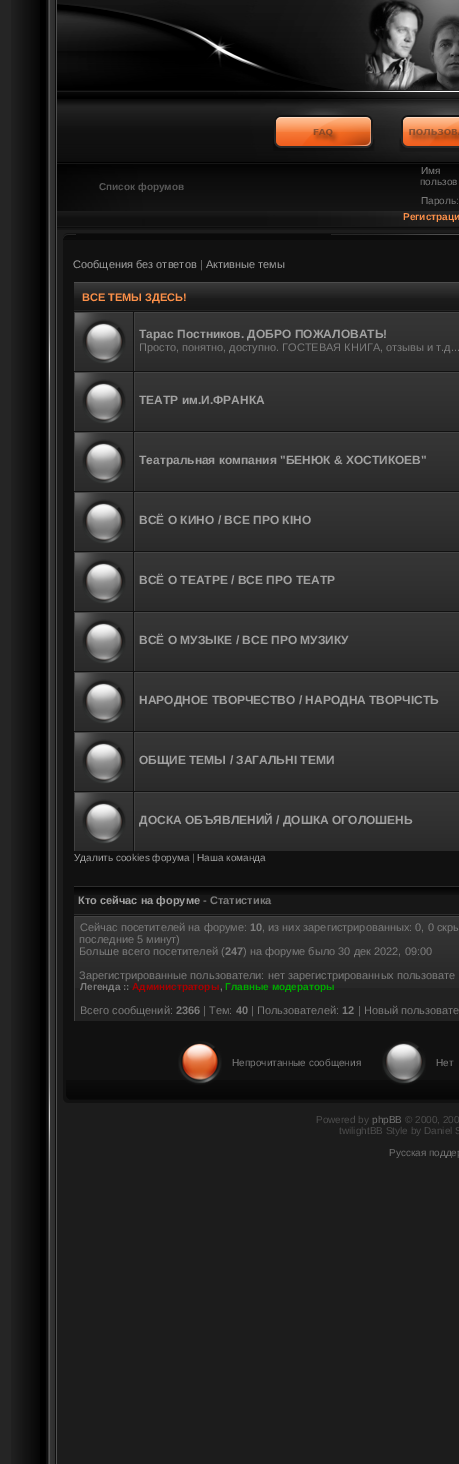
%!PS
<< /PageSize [459 1464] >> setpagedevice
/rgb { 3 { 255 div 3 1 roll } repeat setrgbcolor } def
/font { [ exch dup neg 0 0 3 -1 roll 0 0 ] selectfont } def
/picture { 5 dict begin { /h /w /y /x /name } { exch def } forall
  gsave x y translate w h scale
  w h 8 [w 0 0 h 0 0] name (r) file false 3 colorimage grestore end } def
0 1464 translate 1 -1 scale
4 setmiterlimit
28 28 28 rgb
0 0 459 1464 rectfill
37 37 37 rgb
0 0 11 1464 rectfill
(img/1.rgb) 11 0 46 1464 picture
(img/2.rgb) 57 226 402 4 picture
(img/3.rgb) 57 0 402 99 picture
(img/4.rgb) 365 0 94 90 picture
(img/5.rgb) 57 99 402 127 picture
(img/6.rgb) 273 108 102 43 picture
(img/7.rgb) 399 108 60 44 picture
17 17 17 rgb
63 233 396 870 rectfill
10 10 10 rgb
63 234 396 6 rectfill
(img/8.rgb) 331 234 128 1 picture
(img/9.rgb) 63 233 13 6 picture
(img/10.rgb) 69 1080 390 20 picture
(img/11.rgb) 63 1080 6 23 picture
(img/12.rgb) 74 282 385 29 picture
(img/13.rgb) 75 313 58 58 picture
68 68 68 rgb
74 312 59 1 rectfill
64 64 64 rgb
74 312 1 59 rectfill
(img/14.rgb) 82 319 44 45 picture
(img/15.rgb) 135 313 324 58 picture
68 68 68 rgb
134 312 325 1 rectfill
64 64 64 rgb
134 312 1 59 rectfill
(img/13.rgb) 75 373 58 58 picture
68 68 68 rgb
74 372 59 1 rectfill
64 64 64 rgb
74 372 1 59 rectfill
(img/14.rgb) 82 379 44 45 picture
(img/15.rgb) 135 373 324 58 picture
68 68 68 rgb
134 372 325 1 rectfill
64 64 64 rgb
134 372 1 59 rectfill
(img/13.rgb) 75 433 58 58 picture
68 68 68 rgb
74 432 59 1 rectfill
64 64 64 rgb
74 432 1 59 rectfill
(img/14.rgb) 82 439 44 45 picture
(img/15.rgb) 135 433 324 58 picture
68 68 68 rgb
134 432 325 1 rectfill
64 64 64 rgb
134 432 1 59 rectfill
(img/13.rgb) 75 493 58 58 picture
68 68 68 rgb
74 492 59 1 rectfill
64 64 64 rgb
74 492 1 59 rectfill
(img/14.rgb) 82 499 44 45 picture
(img/15.rgb) 135 493 324 58 picture
68 68 68 rgb
134 492 325 1 rectfill
64 64 64 rgb
134 492 1 59 rectfill
(img/13.rgb) 75 553 58 58 picture
68 68 68 rgb
74 552 59 1 rectfill
64 64 64 rgb
74 552 1 59 rectfill
(img/14.rgb) 82 559 44 45 picture
(img/15.rgb) 135 553 324 58 picture
68 68 68 rgb
134 552 325 1 rectfill
64 64 64 rgb
134 552 1 59 rectfill
(img/13.rgb) 75 613 58 58 picture
68 68 68 rgb
74 612 59 1 rectfill
64 64 64 rgb
74 612 1 59 rectfill
(img/14.rgb) 82 619 44 45 picture
(img/15.rgb) 135 613 324 58 picture
68 68 68 rgb
134 612 325 1 rectfill
64 64 64 rgb
134 612 1 59 rectfill
(img/13.rgb) 75 673 58 58 picture
68 68 68 rgb
74 672 59 1 rectfill
64 64 64 rgb
74 672 1 59 rectfill
(img/14.rgb) 82 679 44 45 picture
(img/15.rgb) 135 673 324 58 picture
68 68 68 rgb
134 672 325 1 rectfill
64 64 64 rgb
134 672 1 59 rectfill
(img/13.rgb) 75 733 58 58 picture
68 68 68 rgb
74 732 59 1 rectfill
64 64 64 rgb
74 732 1 59 rectfill
(img/14.rgb) 82 739 44 45 picture
(img/15.rgb) 135 733 324 58 picture
68 68 68 rgb
134 732 325 1 rectfill
64 64 64 rgb
134 732 1 59 rectfill
(img/13.rgb) 75 793 58 58 picture
68 68 68 rgb
74 792 59 1 rectfill
64 64 64 rgb
74 792 1 59 rectfill
(img/14.rgb) 82 799 44 45 picture
(img/15.rgb) 135 793 324 58 picture
[
  [134 792 325 1 68 68 68]
  [134 792 1 59 64 64 64]
  [74 895 385 19 23 23 23]
] { aload pop rgb rectfill } forall
(img/16.rgb) 74 886 385 9 picture
45 45 45 rgb
74 914 385 1 rectfill
34 34 34 rgb
75 988 384 33 rectfill
(img/17.rgb) 75 917 384 71 picture
68 68 68 rgb
74 916 385 1 rectfill
64 64 64 rgb
74 916 1 105 rectfill
(img/18.rgb) 178 1041 44 44 picture
(img/19.rgb) 382 1041 44 44 picture
/LiberationSans-Bold 10 font
88 88 88 rgb
99 190 moveto (Список форумов) show
/LiberationSans-Regular 10 font
124 124 124 rgb
[
  [(Имя) 421 174]
  [(пользов) 420 185]
  [(Пароль:) 421 204]
] { aload pop moveto show } forall
/LiberationSans-Bold 10 font
252 144 73 rgb
403 220 moveto (Регистраци) show
/LiberationSans-Regular 11 font
161 161 161 rgb
73 268 moveto (Сообщения без ответов) show
124 124 124 rgb
200 268 moveto (|) show
161 161 161 rgb
206 268 moveto (Активные темы) show
/LiberationSans-Bold 11 font
252 144 73 rgb
82 301 moveto (ВСЕ ТЕМЫ ЗДЕСЬ!) show
/LiberationSans-Bold 12 font
161 161 161 rgb
139 338 moveto (Тарас Постников. ДОБРО ПОЖАЛОВАТЬ!) show
/LiberationSans-Regular 11 font
124 124 124 rgb
139 351 moveto (Просто, понятно, доступно. ГОСТЕВАЯ КНИГА, отзывы и т.д...) show
/LiberationSans-Bold 12 font
161 161 161 rgb
[
  [(ТЕАТР им.И.ФРАНКА) 139 404]
  [(Театральная компания "БЕНЮК & ХОСТИКОЕВ") 139 464]
  [(ВСЁ О КИНО / ВСЕ ПРО КІНО) 139 524]
  [(ВСЁ О ТЕАТРЕ / ВСЕ ПРО ТЕАТР) 139 584]
  [(ВСЁ О МУЗЫКЕ / ВСЕ ПРО МУЗИКУ) 139 644]
  [(НАРОДНОЕ ТВОРЧЕСТВО / НАРОДНА ТВОРЧІСТЬ) 139 704]
  [(ОБЩИЕ ТЕМЫ / ЗАГАЛЬНІ ТЕМИ) 139 764]
  [(ДОСКА ОБЪЯВЛЕНИЙ / ДОШКА ОГОЛОШЕНЬ) 139 824]
] { aload pop moveto show } forall
/LiberationSans-Regular 10 font
74 861 moveto (Удалить cookies форума) show
124 124 124 rgb
192 861 moveto (|) show
161 161 161 rgb
197 861 moveto (Наша команда) show
/LiberationSans-Bold 11 font
78 904 moveto (Кто сейчас на форуме) show
124 124 124 rgb
203 904 moveto (- Статистика) show
/LiberationSans-Regular 11 font
80 931 moveto (Сейчас посетителей на форуме:) show
/LiberationSans-Bold 11 font
250 931 moveto (10) show
/LiberationSans-Regular 11 font
[
  [(, из них зарегистрированных: 0, 0 скры) 262 931]
  [(последние 5 минут\)) 79 943]
  [(Больше всего посетителей \() 79 955]
] { aload pop moveto show } forall
/LiberationSans-Bold 11 font
225 955 moveto (247) show
/LiberationSans-Regular 11 font
243 955 moveto (\) на форуме было 30 дек 2022, 09:00) show
79 979 moveto (Зарегистрированные пользователи: нет зарегистрированных пользовате) show
/LiberationSans-Bold 10 font
80 990 moveto (Легенда ::) show
170 0 0 rgb
132 990 moveto (Администраторы) show
124 124 124 rgb
220 990 moveto (,) show
0 170 0 rgb
225 990 moveto (Главные модераторы) show
/LiberationSans-Regular 11 font
124 124 124 rgb
80 1014 moveto (Всего сообщений:) show
/LiberationSans-Bold 11 font
176 1014 moveto (2366) show
/LiberationSans-Regular 11 font
203 1014 moveto (| Тем:) show
/LiberationSans-Bold 11 font
236 1014 moveto (40) show
/LiberationSans-Regular 11 font
251 1014 moveto (| Пользователей:) show
/LiberationSans-Bold 11 font
342 1014 moveto (12) show
/LiberationSans-Regular 11 font
358 1014 moveto (| Новый пользовате) show
/LiberationSans-Regular 10 font
232 1066 moveto (Непрочитанные сообщения) show
436 1066 moveto (Нет) show
77 77 77 rgb
316 1123 moveto (Powered by) show
113 113 113 rgb
372 1123 moveto (phpBB) show
77 77 77 rgb
405 1123 moveto (© 2000, 200) show
339 1134 moveto (twilightBB Style by Daniel S) show
113 113 113 rgb
389 1156 moveto (Русская поддер) show
showpage
